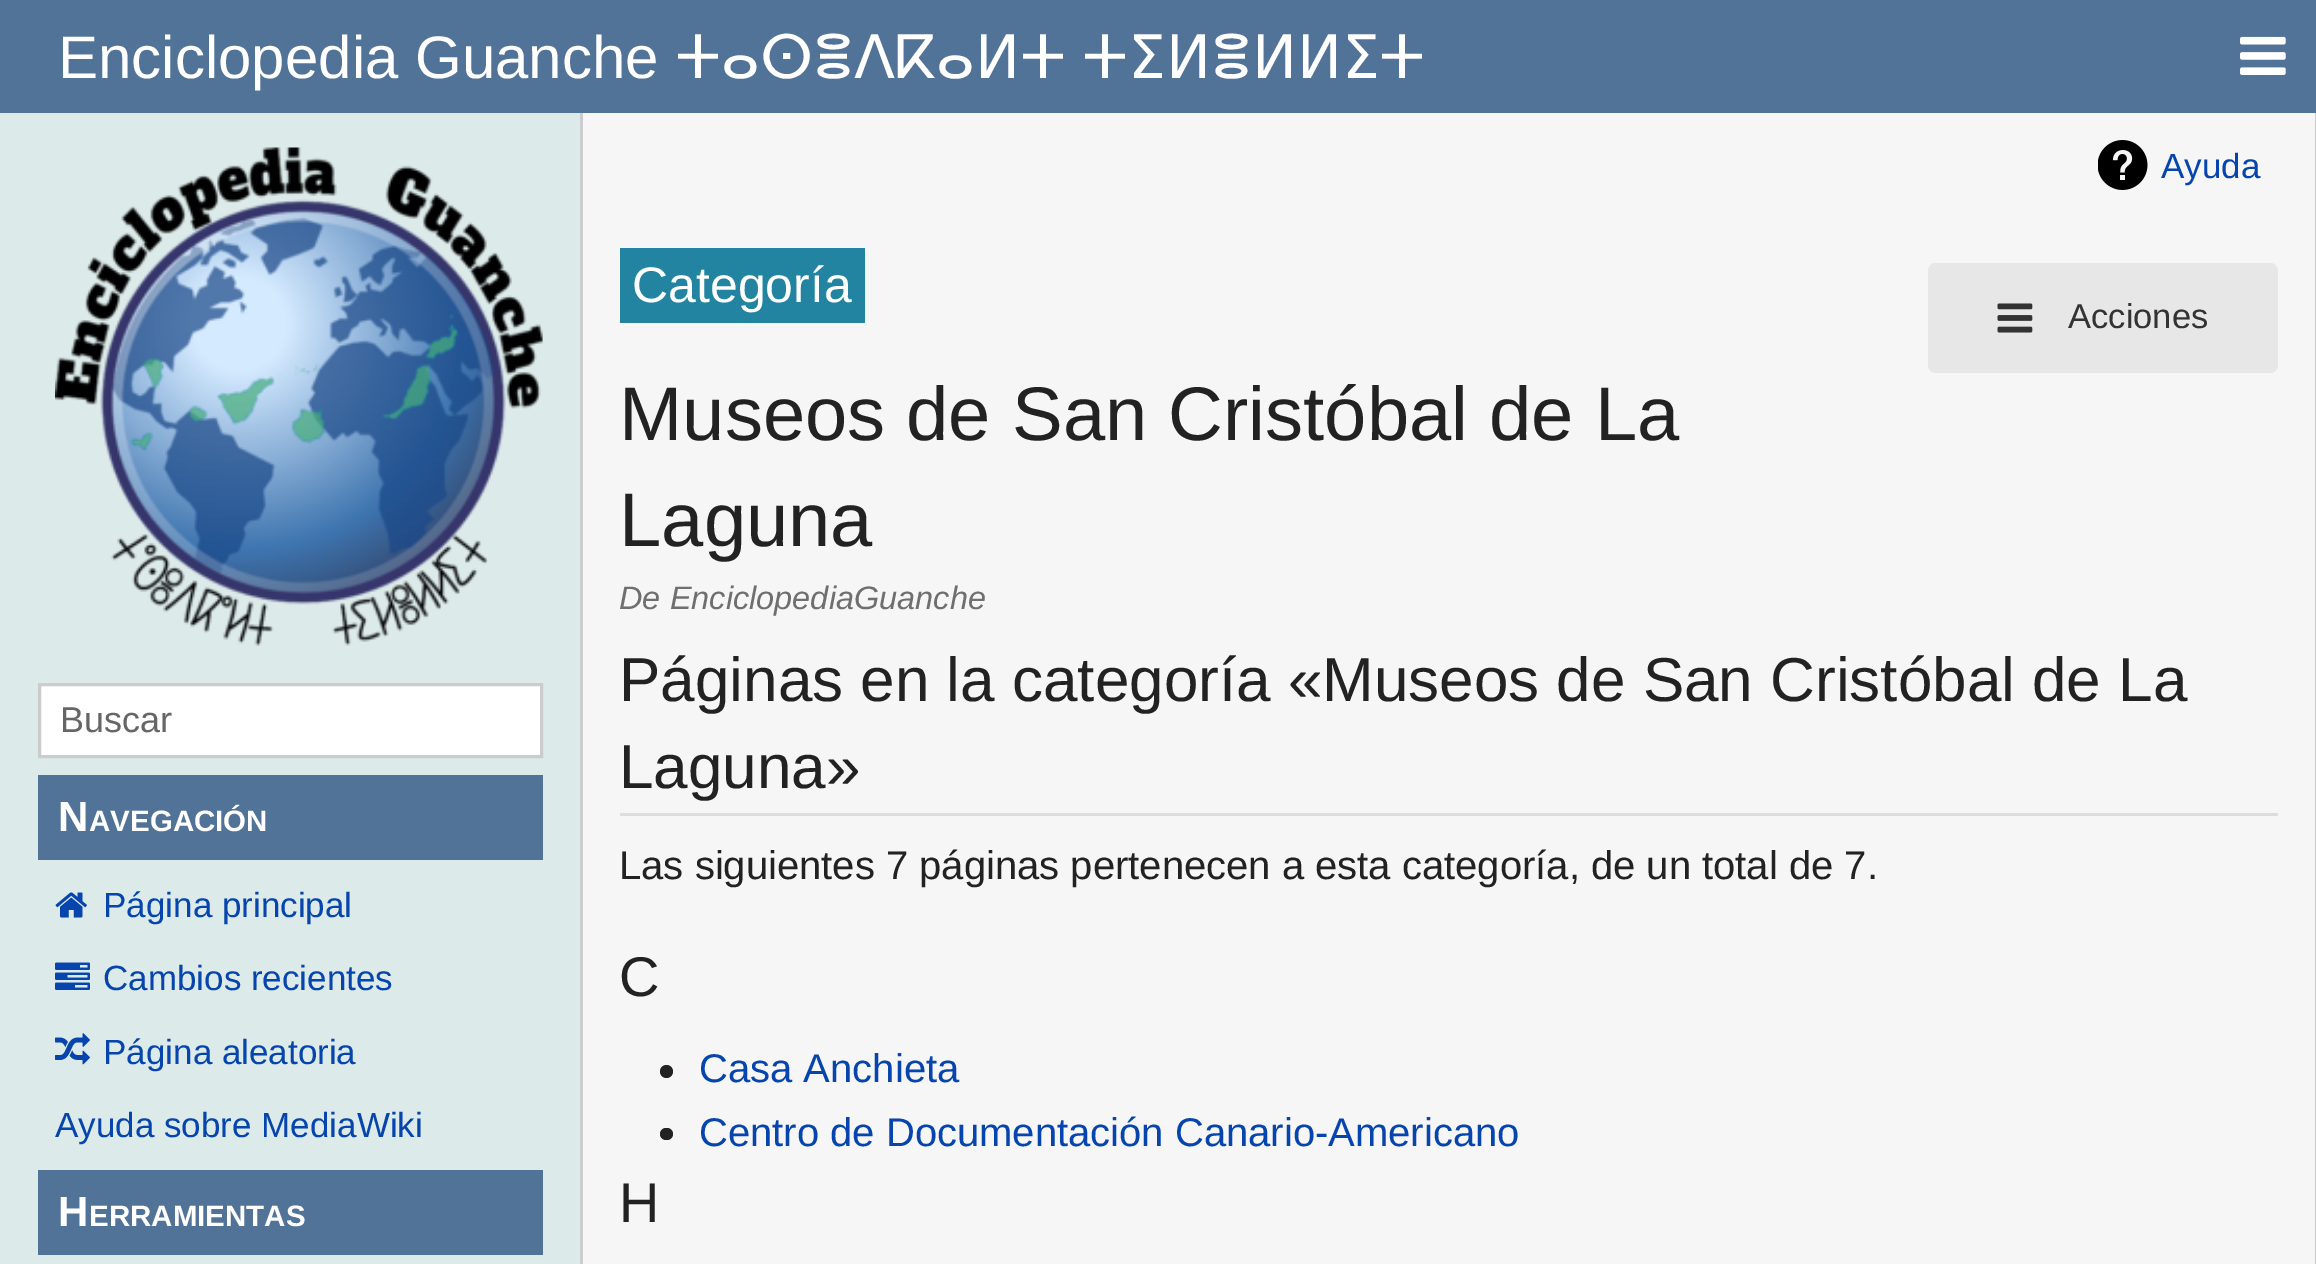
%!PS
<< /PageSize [2316 1264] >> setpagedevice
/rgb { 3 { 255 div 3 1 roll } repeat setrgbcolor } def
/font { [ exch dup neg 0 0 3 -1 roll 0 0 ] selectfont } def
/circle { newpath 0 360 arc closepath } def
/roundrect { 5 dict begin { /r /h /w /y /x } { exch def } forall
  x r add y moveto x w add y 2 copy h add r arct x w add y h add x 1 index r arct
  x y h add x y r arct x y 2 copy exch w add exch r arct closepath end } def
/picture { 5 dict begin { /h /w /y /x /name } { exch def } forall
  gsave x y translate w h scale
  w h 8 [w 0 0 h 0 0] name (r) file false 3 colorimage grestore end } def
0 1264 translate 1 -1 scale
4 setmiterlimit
220 234 234 rgb
0 0 2316 1264 rectfill
81 115 152 rgb
0 0 2316 113 rectfill
(img/1.rgb) 2240 36 46 39 picture
(img/2.rgb) 55 147 488 499 picture
255 255 255 rgb
39.5 684.5 moveto 541.5 684.5 lineto 541.5 756.5 lineto 39.5 756.5 lineto closepath gsave fill grestore
204 204 204 rgb
3 setlinewidth
stroke
81 115 152 rgb
38 775 505 85 rectfill
(img/3.rgb) 55 892 32 26 picture
(img/4.rgb) 55 962 35 28 picture
(img/5.rgb) 55 1033 35 32 picture
[
  [38 1170 505 85 81 115 152]
  [583 113 1732 1151 246 246 246]
  [2315 113 1 1151 204 204 204]
  [580 113 3 1151 204 204 204]
] { aload pop rgb rectfill } forall
(img/6.rgb) 2098 140 50 50 picture
34 132 161 rgb
620 248 245 75 rectfill
231 231 231 rgb
1928 263 350 110 8 roundrect fill
(img/7.rgb) 1997 303 36 30 picture
221 221 221 rgb
620 813 1658 3 rectfill
34 34 34 rgb
666.5 1071.5 6.5 circle fill
660 1128 13 12 6 roundrect fill
/LiberationSans-Regular 60 font
255 255 255 rgb
58 78 moveto (Enciclopedia Guanche) show
/DejaVuSans-Regular 60 font
675 78 moveto (ⵜⴰⵙⴻⴷⴽⴰⵍⵜ) show
1082 78 moveto (ⵜⵉⵍⴻⵍⵍⵉⵜ) show
/LiberationSans-Regular 36 font
102 102 102 rgb
60 732 moveto (Buscar) show
/LiberationSans-Bold 42 font
255 255 255 rgb
58 831 moveto (N) show
/LiberationSans-Bold 29.5 font
89 831 moveto (AVEGACIÓN) show
/LiberationSans-Regular 35 font
6 69 173 rgb
[
  [(Página principal) 103 917]
  [(Cambios recientes) 103 990]
  [(Página aleatoria) 103 1064]
  [(Ayuda sobre MediaWiki) 55 1137]
] { aload pop moveto show } forall
/LiberationSans-Bold 42 font
255 255 255 rgb
58 1226 moveto (H) show
/LiberationSans-Bold 29.5 font
89 1226 moveto (ERRAMIENTAS) show
/LiberationSans-Regular 35 font
6 69 173 rgb
2161 178 moveto (Ayuda) show
/LiberationSans-Regular 50 font
255 255 255 rgb
632 302 moveto (Categoría) show
/LiberationSans-Regular 34.5 font
51 51 51 rgb
2068 328 moveto (Acciones) show
/LiberationSans-Regular 76 font
34 34 34 rgb
619 440 moveto (Museos de San Cristóbal de La) show
619 546 moveto (Laguna) show
/LiberationSans-Italic 32.5 font
111 111 111 rgb
619 609 moveto (De EnciclopediaGuanche) show
/LiberationSans-Regular 62 font
34 34 34 rgb
619 701 moveto (Páginas en la categoría «Museos de San Cristóbal de La) show
619 788 moveto (Laguna») show
/LiberationSans-Regular 40 font
619 879 moveto (Las siguientes 7 páginas pertenecen a esta categoría, de un total de 7.) show
/LiberationSans-Regular 56 font
619 996 moveto (C) show
/LiberationSans-Regular 40 font
6 69 173 rgb
699 1082 moveto (Casa Anchieta) show
699 1146 moveto (Centro de Documentación Canario-Americano) show
/LiberationSans-Regular 56 font
34 34 34 rgb
619 1222 moveto (H) show
showpage
